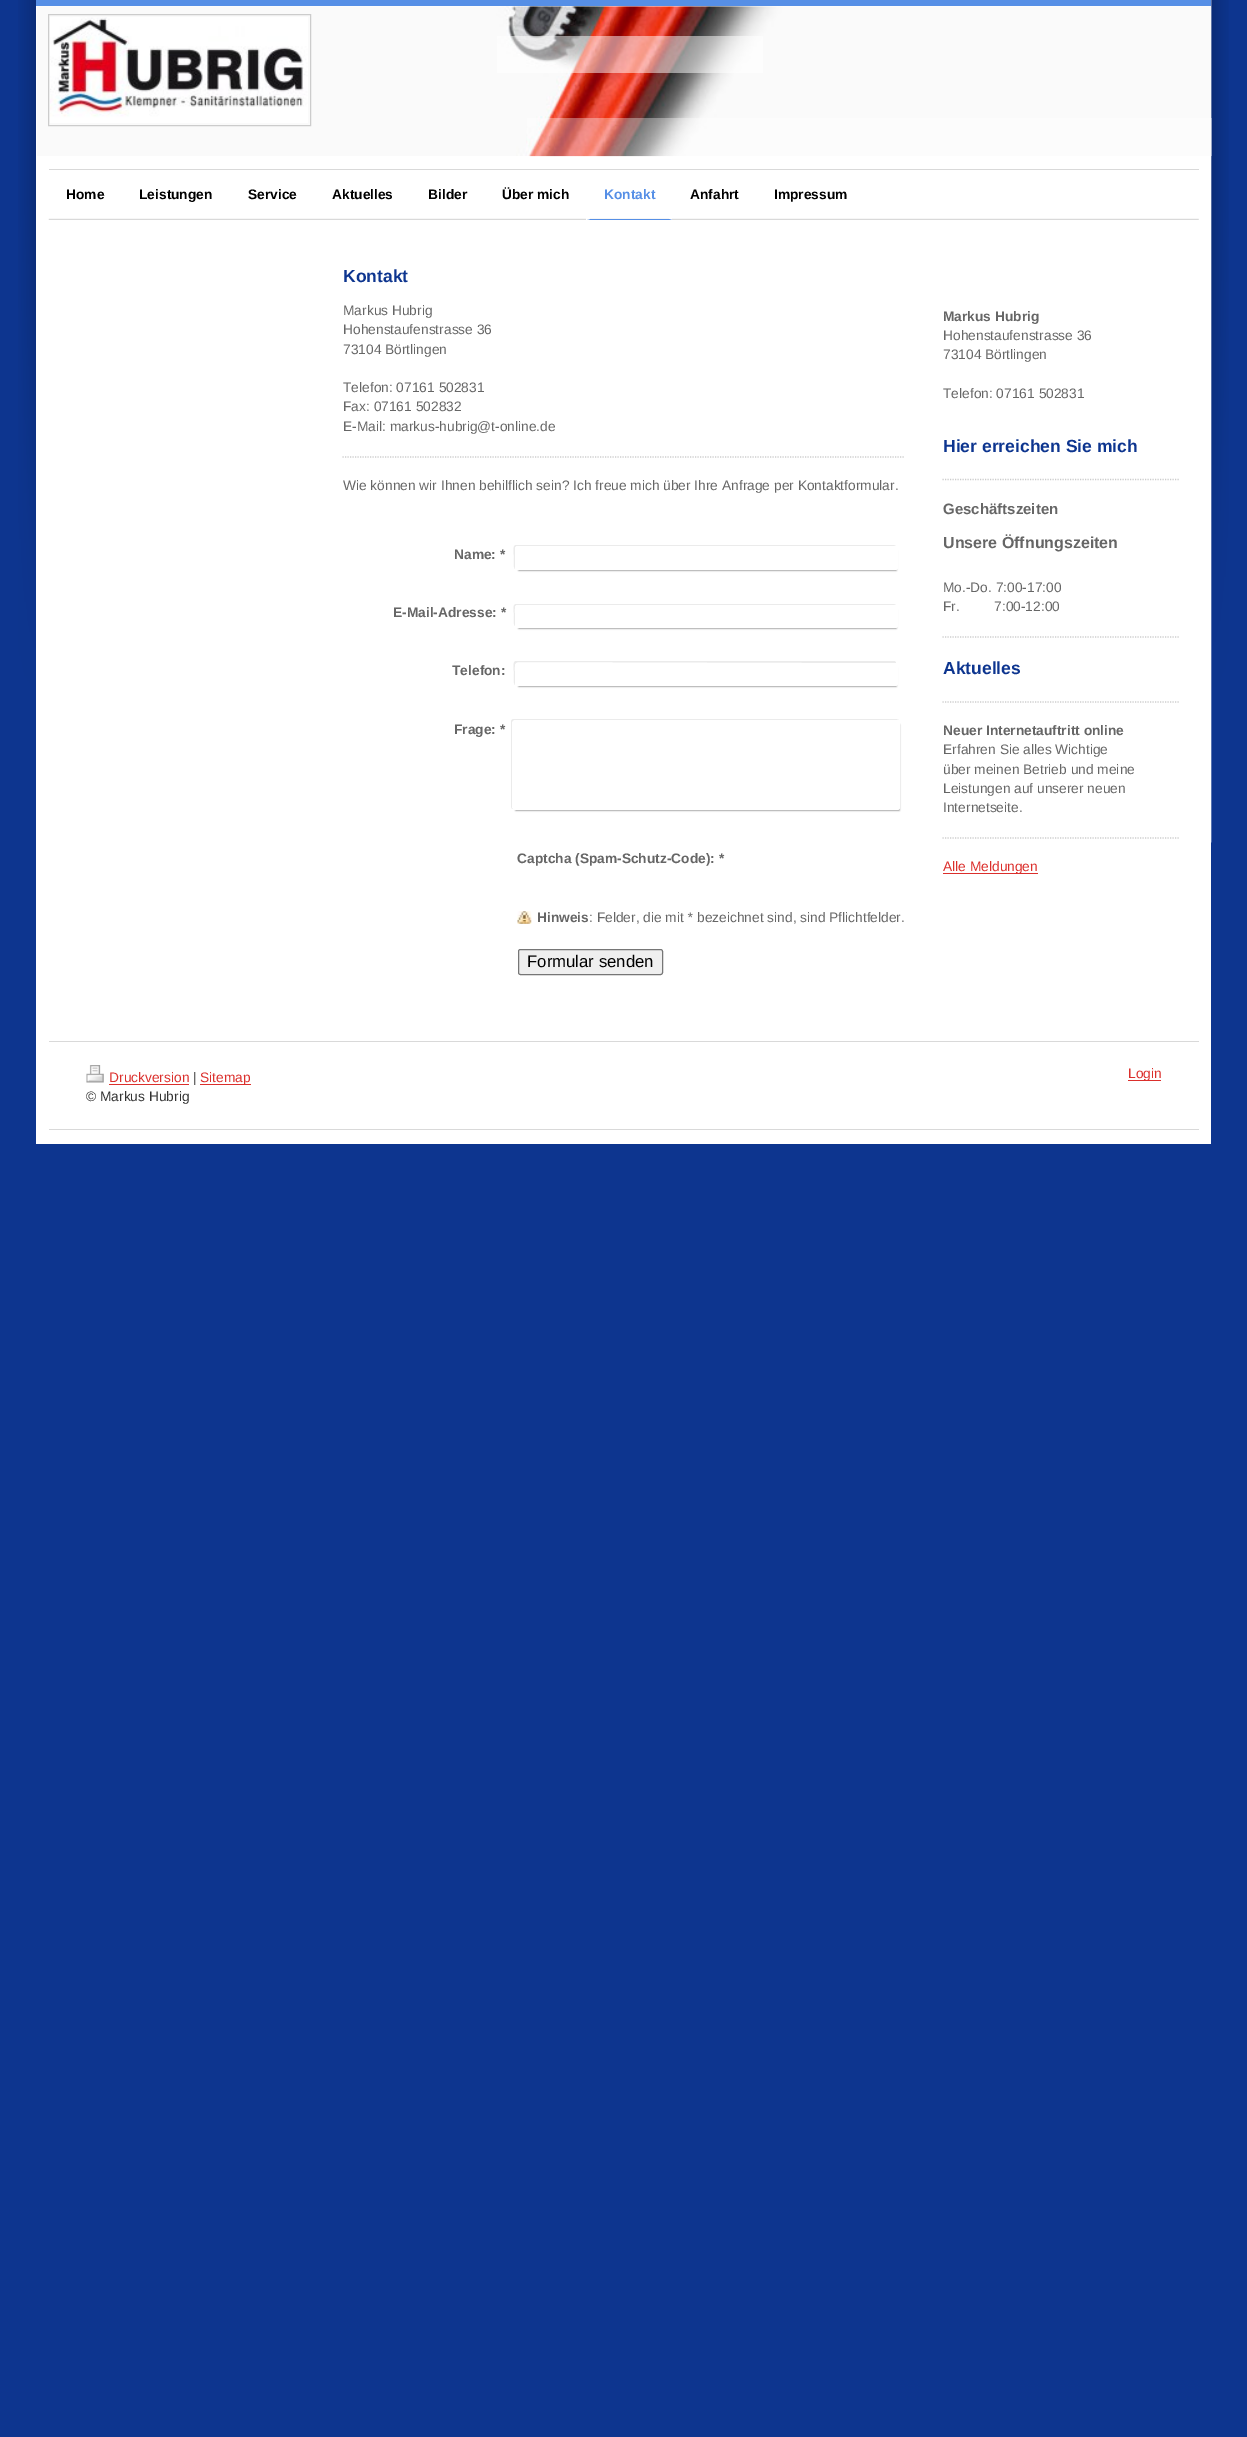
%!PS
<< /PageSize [1247 2437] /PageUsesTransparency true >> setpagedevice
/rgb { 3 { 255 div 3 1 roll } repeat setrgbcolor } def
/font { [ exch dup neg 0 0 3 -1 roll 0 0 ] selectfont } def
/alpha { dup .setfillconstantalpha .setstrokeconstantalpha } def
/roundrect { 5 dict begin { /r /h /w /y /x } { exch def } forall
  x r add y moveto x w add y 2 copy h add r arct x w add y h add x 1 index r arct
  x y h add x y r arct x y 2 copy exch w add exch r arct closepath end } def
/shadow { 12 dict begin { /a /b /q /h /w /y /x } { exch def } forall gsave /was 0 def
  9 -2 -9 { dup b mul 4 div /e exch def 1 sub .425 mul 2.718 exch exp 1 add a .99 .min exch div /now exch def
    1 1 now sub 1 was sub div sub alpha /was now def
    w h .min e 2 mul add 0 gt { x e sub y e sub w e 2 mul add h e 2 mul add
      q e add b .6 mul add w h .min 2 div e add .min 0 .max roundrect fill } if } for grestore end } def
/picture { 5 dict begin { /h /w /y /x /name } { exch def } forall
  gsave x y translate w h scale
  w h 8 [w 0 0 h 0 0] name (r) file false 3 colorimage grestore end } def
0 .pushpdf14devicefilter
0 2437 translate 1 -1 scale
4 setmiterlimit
13 53 143 rgb
0 0 1247 2437 rectfill
(img/1.rgb) 18 0 1211 843 picture
255 255 255 rgb
36 6 1175 1138 rectfill
86 143 230 rgb
36 0 1175 6 rectfill
(img/2.rgb) 37 6 1175 151 picture
204 204 204 rgb
48.5 14.5 262 111 rectstroke
(img/3.rgb) 50 17 258 106 picture
0.5 alpha
[
  [497 36 266 37 255 255 255]
] { aload pop rgb rectfill } forall
0.35 alpha
[
  [527 118 685 38 255 255 255]
] { aload pop rgb rectfill } forall
1 alpha
[
  [49 169 1150 1 217 217 217]
] { aload pop rgb rectfill } forall
(img/4.rgb) 48 218 1151 2 picture
255 255 255 rgb
672 170 moveto 672 220 lineto 669 219 lineto 669 170 lineto closepath fill
86 143 230 rgb
672 220 moveto 586 220 lineto 590 219 lineto 669 219 lineto closepath fill
255 255 255 rgb
586 220 moveto 586 170 lineto 590 170 lineto 590 219 lineto closepath fill
204 204 204 rgb
1.2 setlinewidth
[1.25 1.25] 0 setdash
342.5 457 moveto 905 457 lineto stroke
235 235 235 rgb
516 545 moveto 512 545 514 555 514 557 curveto 514 559 513 567 515 569 curveto 515 555 lineto 515 553 514 546 518 546 curveto 896 546 lineto 895 546 894 545 894 545 curveto closepath fill
0 0 0 rgb
519 551 377 19 0 1 0.8 shadow
255 255 255 rgb
515 546 383 24 2.5 roundrect fill
235 235 235 rgb
516 604 moveto 512 604 514 613 514 615 curveto 514 617 513 624 515 626 curveto 515 616 lineto 515 614 513 605 518 605 curveto 896 605 lineto 894 604 lineto closepath fill
0 0 0 rgb
519 610 377 18 0 1 0.8 shadow
255 255 255 rgb
515 605 383 23 2.5 roundrect fill
235 235 235 rgb
516 661 moveto 512 661 514 671 514 673 curveto 514 675 513 683 515 685 curveto 515 674 lineto 515 672 513 663 518 662 curveto 896 663 lineto 896 662 895 661 894 661 curveto closepath fill
0 0 0 rgb
519 668 377 18 0 1 0.8 shadow
255 255 255 rgb
515 663 383 23 2.5 roundrect fill
235 235 235 rgb
514 719 moveto 512 719 511 720 511 722 curveto 511 806 lineto 511 808 512 809 513 809 curveto 512 808 lineto 512 722 lineto 512 721 514 720 515 720 curveto 899 720 lineto 898 720 897 719 896 719 curveto closepath fill
0 0 0 rgb
516 725 383 85 0 1 0.8 shadow
255 255 255 rgb
513 720 387 90 2.5 roundrect fill
(img/5.rgb) 517 911 15 13 picture
239 239 239 rgb
518.5 949.5 144 25 2 roundrect gsave fill grestore
118 118 118 rgb
1 setlinewidth
[] 0 setdash
stroke
204 204 204 rgb
1.2 setlinewidth
[1.25 1.25] 0 setdash
942.5 479.5 moveto 1180 479.5 lineto stroke
942.5 637 moveto 1180 637 lineto stroke
942.5 702 moveto 1180 702 lineto stroke
942.5 838 moveto 1180 838 lineto stroke
[
  [943 873 95 1 219 47 44]
  [49 1041 1150 1 217 217 217]
  [49 1129 1150 1 217 217 217]
] { aload pop rgb rectfill } forall
(img/6.rgb) 86 1065 18 18 picture
[
  [109 1084 80 1 219 47 44]
  [200 1084 51 1 219 47 44]
  [1128 1080 33 1 219 47 44]
] { aload pop rgb rectfill } forall
/LiberationSans-Bold 13.75 font
0 0 0 rgb
[
  [(Home) 66 199]
  [(Leistungen) 139 199]
  [(Service) 248 199]
  [(Aktuelles) 332 199]
  [(Bilder) 428 199]
  [(Über mich) 502 199]
] { aload pop moveto show } forall
86 143 230 rgb
604 199 moveto (Kontakt) show
0 0 0 rgb
690 199 moveto (Anfahrt) show
774 199 moveto (Impressum) show
/LiberationSans-Bold 17.5 font
13 53 143 rgb
343 282 moveto (Kontakt) show
/LiberationSans-Regular 13.75 font
102 102 102 rgb
[
  [(Markus Hubrig) 343 315]
  [(Hohenstaufenstrasse 36) 343 334]
  [(73104 Börtlingen) 343 354]
  [(Telefon: 07161 502831) 343 392]
  [(Fax: 07161 502832) 343 411]
  [(E-Mail: markus-hubrig@t-online.de) 343 431]
  [(Wie können wir Ihnen behilflich sein? Ich freue mich über Ihre Anfrage per Kontaktformular.) 343 490]
] { aload pop moveto show } forall
/LiberationSans-Bold 13.75 font
[
  [(Name: *) 454 559]
  [(E-Mail-Adresse: *) 393 617]
  [(Telefon:) 452 675]
  [(Frage: *) 454 734]
  [(Captcha \(Spam-Schutz-Code\): *) 517 863]
  [(Hinweis) 537 922]
] { aload pop moveto show } forall
/LiberationSans-Regular 13.75 font
589 922 moveto (: Felder, die mit) show
/LiberationSans-Italic 13.75 font
687 922 moveto (*) show
/LiberationSans-Regular 13.75 font
697 922 moveto (bezeichnet sind, sind Pflichtfelder.) show
/LiberationSans-Regular 16.75 font
0 0 0 rgb
527 967 moveto (Formular senden) show
/LiberationSans-Bold 13.75 font
102 102 102 rgb
943 321 moveto (Markus Hubrig) show
/LiberationSans-Regular 13.75 font
[
  [(Hohenstaufenstrasse 36) 943 340]
  [(73104 Börtlingen) 943 359]
  [(Telefon: 07161 502831) 943 398]
] { aload pop moveto show } forall
/LiberationSans-Bold 17.5 font
13 53 143 rgb
943 452 moveto (Hier erreichen Sie mich) show
/LiberationSans-Bold 15 font
102 102 102 rgb
943 514 moveto (Geschäftszeiten) show
/LiberationSans-Bold 16 font
943 548 moveto (Unsere Öffnungszeiten) show
/LiberationSans-Regular 13.75 font
943 592 moveto (Mo.-Do. 7:00-17:00) show
943 611 moveto (Fr.         7:00-12:00) show
/LiberationSans-Bold 17.5 font
13 53 143 rgb
943 674 moveto (Aktuelles) show
/LiberationSans-Bold 13.75 font
102 102 102 rgb
943 735 moveto (Neuer Internetauftritt online) show
/LiberationSans-Regular 13.75 font
[
  [(Erfahren Sie alles Wichtige) 943 754]
  [(über meinen Betrieb und meine) 943 774]
  [(Leistungen auf unserer neuen) 943 793]
  [(Internetseite.) 943 812]
] { aload pop moveto show } forall
219 47 44 rgb
943 871 moveto (Alle Meldungen) show
109 1082 moveto (Druckversion) show
51 51 51 rgb
193 1082 moveto (|) show
219 47 44 rgb
200 1082 moveto (Sitemap) show
51 51 51 rgb
86 1101 moveto (© Markus Hubrig) show
219 47 44 rgb
1128 1078 moveto (Login) show
.poppdf14devicefilter showpage
